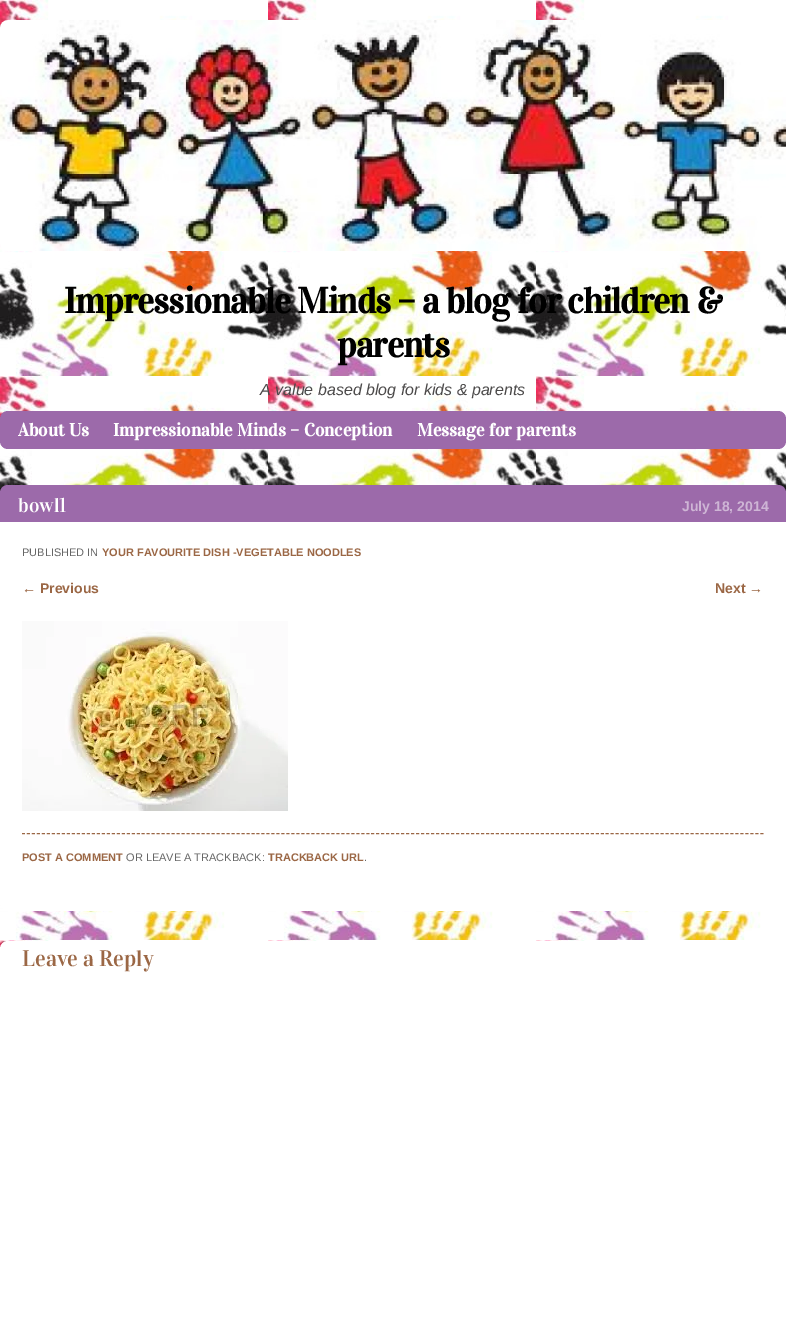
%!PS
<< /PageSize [786 1336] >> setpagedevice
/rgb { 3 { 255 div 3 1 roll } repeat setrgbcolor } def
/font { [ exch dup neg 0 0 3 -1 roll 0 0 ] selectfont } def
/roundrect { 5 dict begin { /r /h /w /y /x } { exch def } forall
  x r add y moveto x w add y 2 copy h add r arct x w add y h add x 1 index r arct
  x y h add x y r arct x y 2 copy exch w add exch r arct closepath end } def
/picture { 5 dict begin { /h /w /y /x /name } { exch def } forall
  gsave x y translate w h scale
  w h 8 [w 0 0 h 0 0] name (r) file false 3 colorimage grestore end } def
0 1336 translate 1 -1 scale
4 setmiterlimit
255 255 255 rgb
0 0 786 1336 rectfill
(img/1.rgb) 0 0 786 949 picture
(img/2.rgb) 0 20 786 231 picture
156 106 170 rgb
0 411 786 38 8 roundrect fill
8 485 moveto 778 485 lineto 782.5 485 786 488.5 786 493 curveto 786 525 lineto 0 525 lineto 0 493 lineto 0 488.5 3.5 485 8 485 curveto closepath fill
255 255 255 rgb
0 522 moveto 786 522 lineto 786 903 lineto 786 907.5 782.5 911 778 911 curveto 8 911 lineto 3.5 911 0 907.5 0 903 curveto closepath fill
155 103 69 rgb
[3 1.99] 0 setdash
22 833.5 moveto 764 833.5 lineto stroke
(img/3.rgb) 22 621 266 190 picture
255 255 255 rgb
0 941 786 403 8 roundrect fill
/Vidaloka-Bold 36 font
0 0 0 rgb
64 313 moveto -1 0 (Impressionable Minds – a blog for children &) ashow
337 357 moveto -1 0 (parents) ashow
/LiberationSans-Italic 16 font
76 74 74 rgb
260 395 moveto (A value based blog for kids & parents) show
/Vidaloka-Bold 18 font
255 255 255 rgb
[
  [(About Us) 18 436]
  [(Impressionable Minds – Conception) 113 436]
  [(Message for parents) 417 436]
] { aload pop moveto show } forall
/Vidaloka-Regular 20 font
18 512 moveto (bowl1) show
/LiberationSans-Bold 14 font
206 181 213 rgb
682 511 moveto (July 18, 2014) show
/LiberationSans-Regular 11 font
102 102 102 rgb
22 556 moveto (PUBLISHED IN) show
/LiberationSans-Bold 11 font
155 103 69 rgb
102 556 moveto (YOUR FAVOURITE DISH -VEGETABLE NOODLES) show
/LiberationSans-Bold 14 font
22 593 moveto (← Previous) show
715 593 moveto (Next →) show
/LiberationSans-Bold 11 font
22 861 moveto (POST A COMMENT) show
/LiberationSans-Regular 11 font
102 102 102 rgb
126 861 moveto (OR LEAVE A TRACKBACK:) show
/LiberationSans-Bold 11 font
155 103 69 rgb
268 861 moveto (TRACKBACK URL) show
/LiberationSans-Regular 11 font
102 102 102 rgb
364 861 moveto (.) show
/Vidaloka-Regular 22.5 font
155 103 69 rgb
22 966 moveto (Leave a Reply) show
showpage
